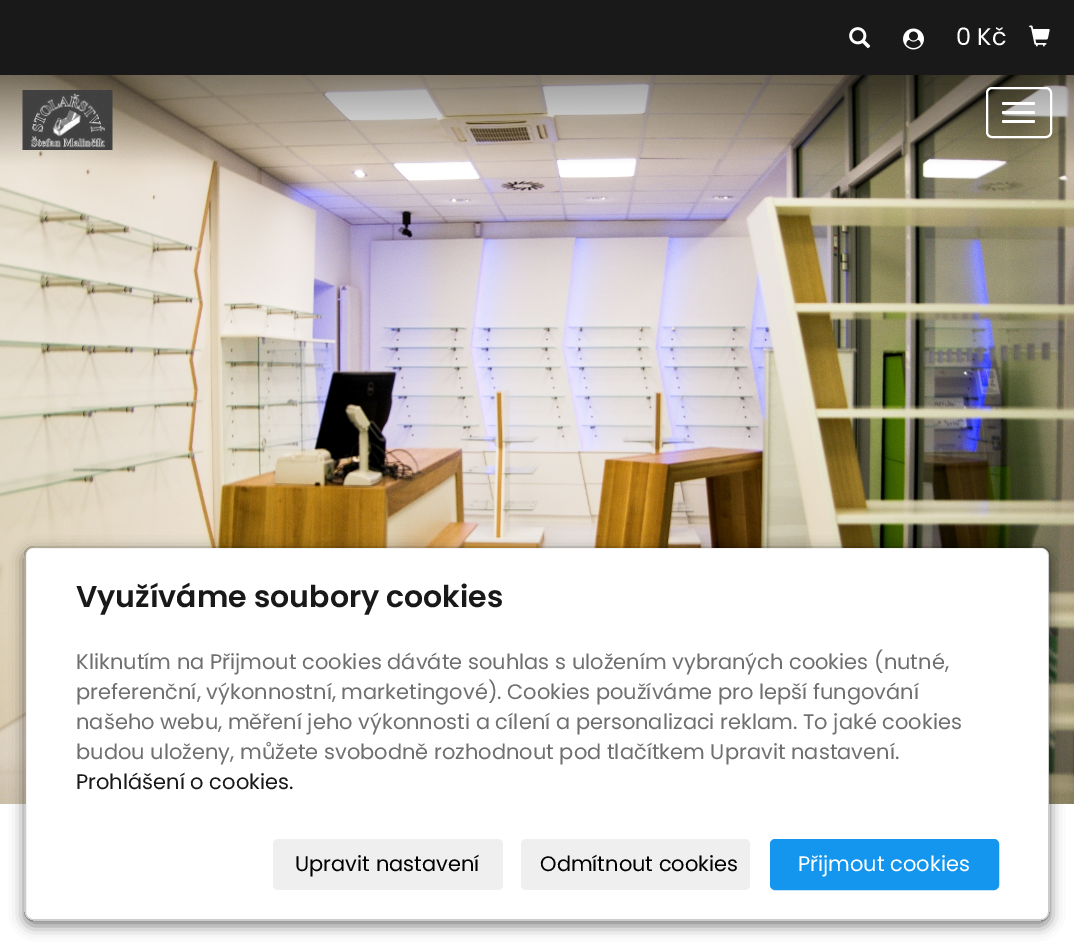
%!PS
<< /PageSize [1074 945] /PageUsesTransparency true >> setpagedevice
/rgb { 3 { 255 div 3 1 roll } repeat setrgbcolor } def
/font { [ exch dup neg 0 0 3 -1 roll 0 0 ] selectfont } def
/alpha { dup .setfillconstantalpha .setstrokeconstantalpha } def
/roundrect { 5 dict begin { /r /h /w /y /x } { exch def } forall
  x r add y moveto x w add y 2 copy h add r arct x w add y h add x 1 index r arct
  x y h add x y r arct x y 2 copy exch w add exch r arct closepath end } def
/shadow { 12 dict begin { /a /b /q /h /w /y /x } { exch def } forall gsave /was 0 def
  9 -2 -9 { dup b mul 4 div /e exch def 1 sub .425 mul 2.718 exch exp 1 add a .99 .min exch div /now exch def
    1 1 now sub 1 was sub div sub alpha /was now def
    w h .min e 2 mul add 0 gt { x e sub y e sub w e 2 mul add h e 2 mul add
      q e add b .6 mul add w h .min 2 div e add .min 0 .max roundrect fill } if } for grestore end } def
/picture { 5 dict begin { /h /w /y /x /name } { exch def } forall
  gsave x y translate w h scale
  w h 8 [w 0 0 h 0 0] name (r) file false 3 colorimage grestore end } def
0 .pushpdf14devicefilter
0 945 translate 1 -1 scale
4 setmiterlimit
255 255 255 rgb
0 0 1074 945 rectfill
25 25 25 rgb
0 0 1074 75 rectfill
(img/1.rgb) 849 27 22 22 picture
(img/2.rgb) 903 28 21 22 picture
(img/3.rgb) 1029 25 21 22 picture
(img/5.rgb) 0 75 1074 729 picture
(img/4.rgb) 22 90 91 60 picture
255 255 255 rgb
2 setlinewidth
987 88 64 49 5 roundrect stroke
1002 102 33 3 1.5 roundrect fill
1002 111 33 3 1.5 roundrect fill
1002 120 33 3 1.5 roundrect fill
gsave
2 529 moveto 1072 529 lineto 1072 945 lineto 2 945 lineto closepath 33 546 moveto 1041 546 lineto 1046 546 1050 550 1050 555 curveto 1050 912 lineto 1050 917 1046 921 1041 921 curveto 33 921 lineto 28 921 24 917 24 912 curveto 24 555 lineto 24 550 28 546 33 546 curveto closepath eoclip newpath
0 0 0 rgb
24 551 1026 375 9 7 0.5 shadow
grestore
26 548 1023 372 8 roundrect fill
0.2 alpha
0 0 0 rgb
25 547 1024 373 8 roundrect stroke
1 alpha
239 239 239 rgb
273 839 230 51 5 roundrect fill
521 839 229 51 5 roundrect fill
20 150 238 rgb
771 840 227 49 4 roundrect gsave fill grestore
stroke
/Poppins-Regular 24 font
255 255 255 rgb
956 45 moveto (0 Kč) show
/Poppins-SemiBold 30 font
25 25 25 rgb
76 607 moveto (Využíváme soubory cookies) show
/Poppins-Regular 21 font
111 111 111 rgb
[
  [(Kliknutím na Přijmout cookies dáváte souhlas s uložením vybraných cookies \(nutné,) 76 669]
  [(preferenční, výkonnostní, marketingové\). Cookies používáme pro lepší fungování) 76 699]
  [(našeho webu, měření jeho výkonnosti a cílení a personalizaci reklam. To jaké cookies) 76 729]
  [(budou uloženy, můžete svobodně rozhodnout pod tlačítkem Upravit nastavení.) 76 759]
] { aload pop moveto show } forall
25 25 25 rgb
76 789 moveto (Prohlášení o cookies.) show
0 0 0 rgb
295 871 moveto (Upravit nastavení) show
540 871 moveto (Odmítnout cookies) show
255 255 255 rgb
798 871 moveto (Přijmout cookies) show
.poppdf14devicefilter showpage
